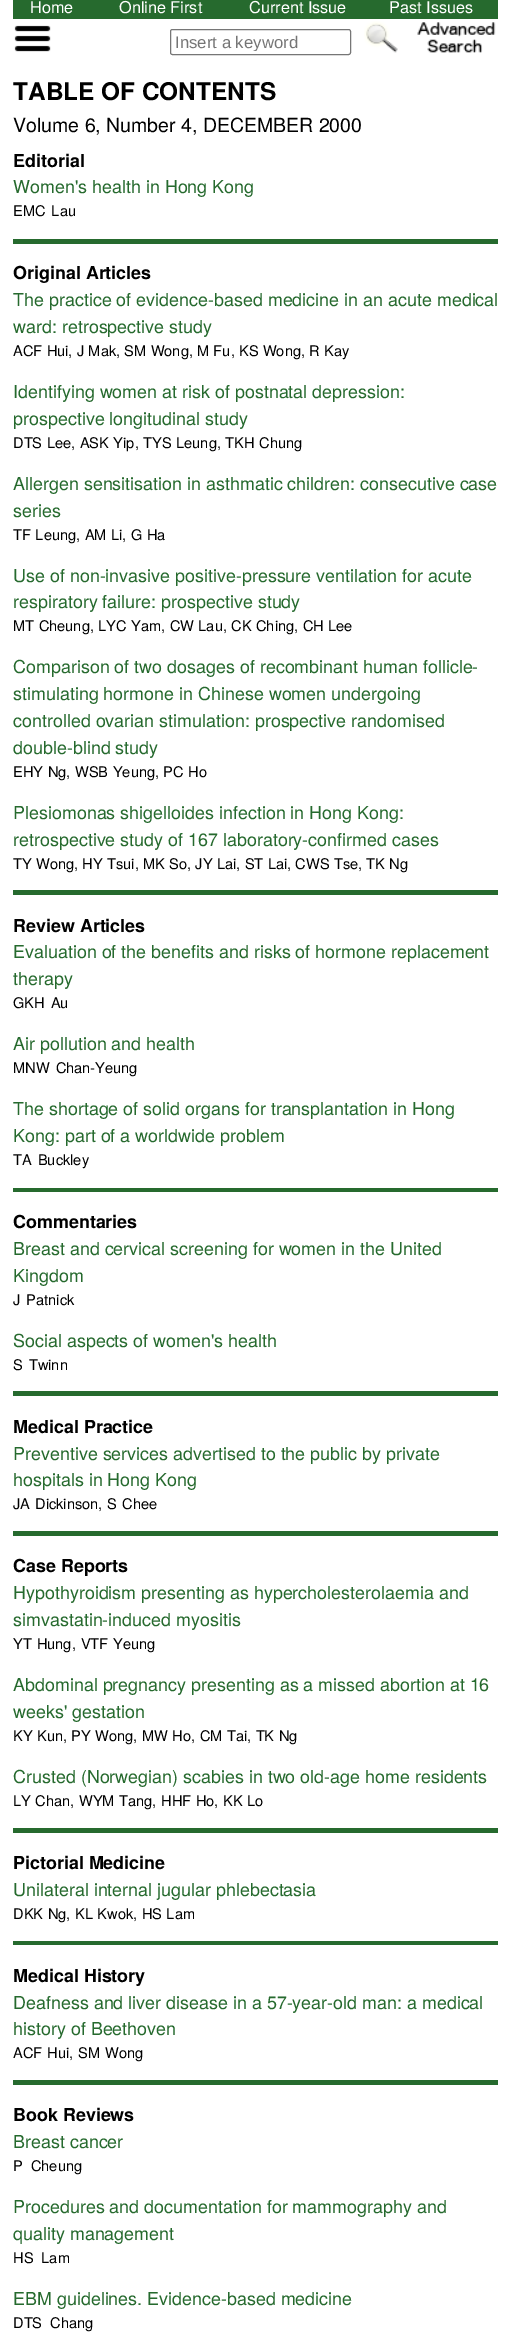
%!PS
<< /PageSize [510 2351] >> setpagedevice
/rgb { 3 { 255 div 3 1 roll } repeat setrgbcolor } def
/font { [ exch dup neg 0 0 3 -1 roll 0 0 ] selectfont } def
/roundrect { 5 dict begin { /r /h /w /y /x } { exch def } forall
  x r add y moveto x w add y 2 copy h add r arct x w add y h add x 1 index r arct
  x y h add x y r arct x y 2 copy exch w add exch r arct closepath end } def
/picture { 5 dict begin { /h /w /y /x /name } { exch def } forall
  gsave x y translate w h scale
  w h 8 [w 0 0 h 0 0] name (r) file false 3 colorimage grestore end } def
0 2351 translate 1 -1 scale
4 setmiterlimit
255 255 255 rgb
0 0 510 2351 rectfill
38 106 46 rgb
13 0 485 19 rectfill
(img/1.rgb) 14 25 37 27 picture
118 118 118 rgb
170.5 29.5 180 25 2 roundrect stroke
(img/2.rgb) 364 21 34 32 picture
(img/3.rgb) 417 22 79 31 picture
[
  [13 239 485 5 38 106 46]
  [13 890 485 5 38 106 46]
  [13 1188 485 4 38 106 46]
  [13 1391 485 5 38 106 46]
  [13 1531 485 5 38 106 46]
  [13 1828 485 5 38 106 46]
  [13 1941 485 4 38 106 46]
  [13 2080 485 5 38 106 46]
] { aload pop rgb rectfill } forall
/TeXGyreHeros-Regular 16.25 font
255 255 255 rgb
[
  [(Home) 30 13]
  [(Online First) 119 13]
  [(Current Issue) 249 13]
  [(Past Issues) 389 13]
] { aload pop moveto show } forall
gsave
175 33 171 18 rectclip
/LiberationSans-Regular 16.75 font
117 117 117 rgb
175 48 moveto (Insert a keyword) show
grestore
/TeXGyreHeros-Bold 24.4 font
0 0 0 rgb
13 100 moveto (TABLE OF CONTENTS) show
/TeXGyreHeros-Regular 19.5 font
13 132 moveto (Volume 6, Number 4, DECEMBER 2000) show
/TeXGyreHeros-Bold 17.9 font
13 167 moveto (Editorial) show
/TeXGyreHeros-Regular 17.9 font
38 106 46 rgb
13 193 moveto (Women's health in Hong Kong) show
/TeXGyreHeros-Regular 14.6 font
0 0 0 rgb
13 216 moveto 2 0 32 (EMC Lau) widthshow
/TeXGyreHeros-Bold 17.9 font
13 279 moveto (Original Articles) show
/TeXGyreHeros-Regular 17.9 font
38 106 46 rgb
13 306 moveto (The practice of evidence-based medicine in an acute medical) show
13 333 moveto (ward: retrospective study) show
/TeXGyreHeros-Regular 14.6 font
0 0 0 rgb
13 356 moveto 0.25 0 32 (ACF Hui, J Mak, SM Wong, M Fu, KS Wong, R Kay) widthshow
/TeXGyreHeros-Regular 17.9 font
38 106 46 rgb
13 398 moveto (Identifying women at risk of postnatal depression:) show
13 425 moveto (prospective longitudinal study) show
/TeXGyreHeros-Regular 14.6 font
0 0 0 rgb
13 448 moveto 0.5 0 32 (DTS Lee, ASK Yip, TYS Leung, TKH Chung) widthshow
/TeXGyreHeros-Regular 17.9 font
38 106 46 rgb
13 490 moveto (Allergen sensitisation in asthmatic children: consecutive case) show
13 517 moveto (series) show
/TeXGyreHeros-Regular 14.6 font
0 0 0 rgb
13 540 moveto 0.5 0 32 (TF Leung, AM Li, G Ha) widthshow
/TeXGyreHeros-Regular 17.9 font
38 106 46 rgb
13 582 moveto (Use of non-invasive positive-pressure ventilation for acute) show
13 608 moveto (respiratory failure: prospective study) show
/TeXGyreHeros-Regular 14.6 font
0 0 0 rgb
13 631 moveto 0.4 0 32 (MT Cheung, LYC Yam, CW Lau, CK Ching, CH Lee) widthshow
/TeXGyreHeros-Regular 17.9 font
38 106 46 rgb
[
  [(Comparison of two dosages of recombinant human follicle-) 13 673]
  [(stimulating hormone in Chinese women undergoing) 13 700]
  [(controlled ovarian stimulation: prospective randomised) 13 727]
  [(double-blind study) 13 754]
] { aload pop moveto show } forall
/TeXGyreHeros-Regular 14.6 font
0 0 0 rgb
13 777 moveto 0.5 0 32 (EHY Ng, WSB Yeung, PC Ho) widthshow
/TeXGyreHeros-Regular 17.9 font
38 106 46 rgb
13 819 moveto (Plesiomonas shigelloides infection in Hong Kong:) show
13 846 moveto (retrospective study of 167 laboratory-confirmed cases) show
/TeXGyreHeros-Regular 14.6 font
0 0 0 rgb
13 869 moveto 0.25 0 32 (TY Wong, HY Tsui, MK So, JY Lai, ST Lai, CWS Tse, TK Ng) widthshow
/TeXGyreHeros-Bold 17.9 font
13 932 moveto (Review Articles) show
/TeXGyreHeros-Regular 17.9 font
38 106 46 rgb
13 958 moveto (Evaluation of the benefits and risks of hormone replacement) show
13 985 moveto (therapy) show
/TeXGyreHeros-Regular 14.6 font
0 0 0 rgb
13 1008 moveto 2 0 32 (GKH Au) widthshow
/TeXGyreHeros-Regular 17.9 font
38 106 46 rgb
13 1050 moveto (Air pollution and health) show
/TeXGyreHeros-Regular 14.6 font
0 0 0 rgb
13 1073 moveto 2 0 32 (MNW Chan-Yeung) widthshow
/TeXGyreHeros-Regular 17.9 font
38 106 46 rgb
13 1115 moveto (The shortage of solid organs for transplantation in Hong) show
13 1142 moveto (Kong: part of a worldwide problem) show
/TeXGyreHeros-Regular 14.6 font
0 0 0 rgb
13 1165 moveto 2 0 32 (TA Buckley) widthshow
/TeXGyreHeros-Bold 17.9 font
13 1228 moveto (Commentaries) show
/TeXGyreHeros-Regular 17.9 font
38 106 46 rgb
13 1255 moveto (Breast and cervical screening for women in the United) show
13 1282 moveto (Kingdom) show
/TeXGyreHeros-Regular 14.6 font
0 0 0 rgb
13 1305 moveto 2 0 32 (J Patnick) widthshow
/TeXGyreHeros-Regular 17.9 font
38 106 46 rgb
13 1347 moveto (Social aspects of women's health) show
/TeXGyreHeros-Regular 14.6 font
0 0 0 rgb
13 1370 moveto 2 0 32 (S Twinn) widthshow
/TeXGyreHeros-Bold 17.9 font
13 1433 moveto (Medical Practice) show
/TeXGyreHeros-Regular 17.9 font
38 106 46 rgb
13 1460 moveto (Preventive services advertised to the public by private) show
13 1486 moveto (hospitals in Hong Kong) show
/TeXGyreHeros-Regular 14.6 font
0 0 0 rgb
13 1509 moveto 1 0 32 (JA Dickinson, S Chee) widthshow
/TeXGyreHeros-Bold 17.9 font
13 1572 moveto (Case Reports) show
/TeXGyreHeros-Regular 17.9 font
38 106 46 rgb
13 1599 moveto (Hypothyroidism presenting as hypercholesterolaemia and) show
13 1626 moveto (simvastatin-induced myositis) show
/TeXGyreHeros-Regular 14.6 font
0 0 0 rgb
13 1649 moveto 1 0 32 (YT Hung, VTF Yeung) widthshow
/TeXGyreHeros-Regular 17.9 font
38 106 46 rgb
13 1691 moveto (Abdominal pregnancy presenting as a missed abortion at 16) show
13 1718 moveto (weeks' gestation) show
/TeXGyreHeros-Regular 14.6 font
0 0 0 rgb
13 1741 moveto 0.4 0 32 (KY Kun, PY Wong, MW Ho, CM Tai, TK Ng) widthshow
/TeXGyreHeros-Regular 17.9 font
38 106 46 rgb
13 1783 moveto (Crusted \(Norwegian\) scabies in two old-age home residents) show
/TeXGyreHeros-Regular 14.6 font
0 0 0 rgb
13 1806 moveto 0.5 0 32 (LY Chan, WYM Tang, HHF Ho, KK Lo) widthshow
/TeXGyreHeros-Bold 17.9 font
13 1869 moveto (Pictorial Medicine) show
/TeXGyreHeros-Regular 17.9 font
38 106 46 rgb
13 1896 moveto (Unilateral internal jugular phlebectasia) show
/TeXGyreHeros-Regular 14.6 font
0 0 0 rgb
13 1919 moveto 0.5 0 32 (DKK Ng, KL Kwok, HS Lam) widthshow
/TeXGyreHeros-Bold 17.9 font
13 1982 moveto (Medical History) show
/TeXGyreHeros-Regular 17.9 font
38 106 46 rgb
13 2009 moveto (Deafness and liver disease in a 57-year-old man: a medical) show
13 2035 moveto (history of Beethoven) show
/TeXGyreHeros-Regular 14.6 font
0 0 0 rgb
13 2058 moveto 1 0 32 (ACF Hui, SM Wong) widthshow
/TeXGyreHeros-Bold 17.9 font
13 2121 moveto (Book Reviews) show
/TeXGyreHeros-Regular 17.9 font
38 106 46 rgb
13 2148 moveto (Breast cancer) show
/TeXGyreHeros-Regular 14.6 font
0 0 0 rgb
13 2171 moveto 4 0 32 (P Cheung) widthshow
/TeXGyreHeros-Regular 17.9 font
38 106 46 rgb
13 2213 moveto (Procedures and documentation for mammography and) show
13 2240 moveto (quality management) show
/TeXGyreHeros-Regular 14.6 font
0 0 0 rgb
13 2263 moveto 4 0 32 (HS Lam) widthshow
/TeXGyreHeros-Regular 17.9 font
38 106 46 rgb
13 2305 moveto (EBM guidelines. Evidence-based medicine) show
/TeXGyreHeros-Regular 14.6 font
0 0 0 rgb
13 2328 moveto 4 0 32 (DTS Chang) widthshow
showpage
